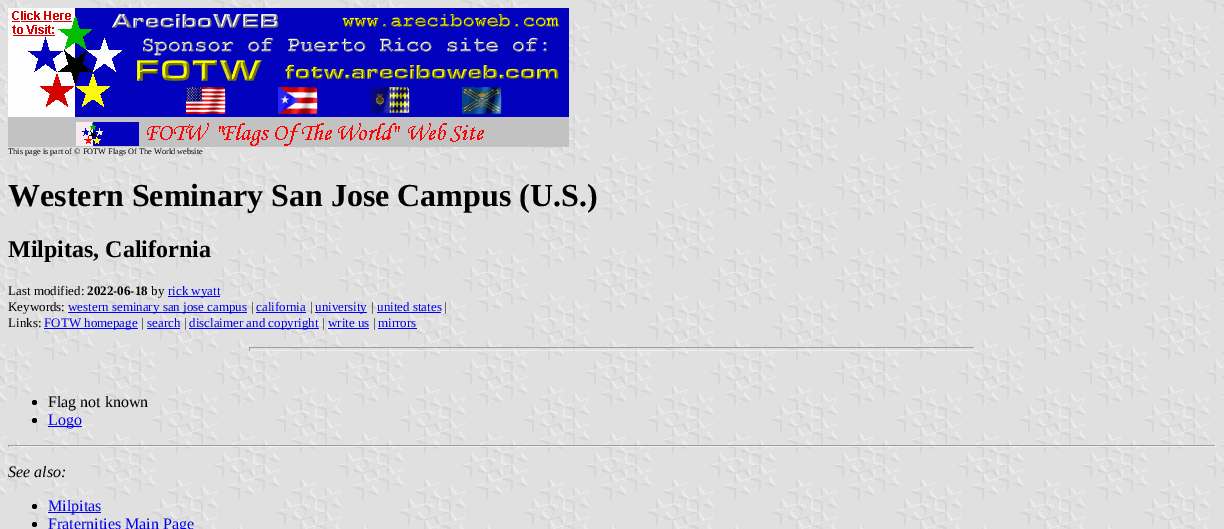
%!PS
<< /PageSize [1224 529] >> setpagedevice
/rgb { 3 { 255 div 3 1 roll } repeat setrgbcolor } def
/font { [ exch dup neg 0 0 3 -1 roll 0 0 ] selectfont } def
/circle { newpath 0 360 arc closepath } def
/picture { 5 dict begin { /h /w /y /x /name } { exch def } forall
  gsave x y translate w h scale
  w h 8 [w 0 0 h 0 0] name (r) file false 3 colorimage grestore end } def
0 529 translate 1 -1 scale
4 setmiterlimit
255 255 255 rgb
0 0 1224 529 rectfill
(img/1.rgb) 0 0 1224 529 picture
(img/2.rgb) 8 8 561 139 picture
[
  [168 296 52 1 0 0 238]
  [68 312 179 1 0 0 238]
  [256 312 50 1 0 0 238]
  [315 312 52 1 0 0 238]
  [377 312 64 1 0 0 238]
  [44 328 94 1 0 0 238]
  [147 328 33 1 0 0 238]
  [189 328 130 1 0 0 238]
  [328 328 41 1 0 0 238]
  [378 328 39 1 0 0 238]
  [249 347 726 1 159 159 159]
  [974 347 1 4 238 238 238]
  [249 350 726 1 238 238 238]
  [249 347 1 4 159 159 159]
] { aload pop rgb rectfill } forall
0 0 0 rgb
34.5 402.5 2.5 circle fill
34.5 420.5 2.5 circle fill
[
  [48 426 34 1 0 0 238]
  [8 445 1208 1 159 159 159]
  [1215 445 1 2 238 238 238]
  [8 446 1208 1 238 238 238]
  [8 445 1 2 159 159 159]
] { aload pop rgb rectfill } forall
0 0 0 rgb
34.5 506.5 2.5 circle fill
0 0 238 rgb
48 512 53 1 rectfill
0 0 0 rgb
34.5 524.5 2.5 circle fill
/LiberationSerif-Regular 8.3 font
8 154 moveto (This page is part of © FOTW Flags Of The World website) show
/LiberationSerif-Bold 32 font
8 206 moveto (Western Seminary San Jose Campus \(U.S.\)) show
/LiberationSerif-Bold 24 font
8 257 moveto (Milpitas, California) show
/LiberationSerif-Regular 13 font
8 295 moveto (Last modified:) show
/LiberationSerif-Bold 13 font
87 295 moveto (2022-06-18) show
/LiberationSerif-Regular 13 font
151 295 moveto (by) show
0 0 238 rgb
168 295 moveto (rick wyatt) show
0 0 0 rgb
8 311 moveto (Keywords:) show
0 0 238 rgb
68 311 moveto (western seminary san jose campus) show
0 0 0 rgb
251 311 moveto (|) show
0 0 238 rgb
256 311 moveto (california) show
0 0 0 rgb
310 311 moveto (|) show
0 0 238 rgb
315 311 moveto (university) show
0 0 0 rgb
371 311 moveto (|) show
0 0 238 rgb
377 311 moveto (united states) show
0 0 0 rgb
444 311 moveto (|) show
8 327 moveto (Links:) show
0 0 238 rgb
44 327 moveto (FOTW homepage) show
0 0 0 rgb
141 327 moveto (|) show
0 0 238 rgb
147 327 moveto (search) show
0 0 0 rgb
184 327 moveto (|) show
0 0 238 rgb
189 327 moveto (disclaimer and copyright) show
0 0 0 rgb
322 327 moveto (|) show
0 0 238 rgb
328 327 moveto (write us) show
0 0 0 rgb
373 327 moveto (|) show
0 0 238 rgb
378 327 moveto (mirrors) show
/LiberationSerif-Regular 16 font
0 0 0 rgb
48 407 moveto (Flag not known) show
0 0 238 rgb
48 425 moveto (Logo) show
/LiberationSerif-Italic 16 font
0 0 0 rgb
8 477 moveto (See also:) show
/LiberationSerif-Regular 16 font
0 0 238 rgb
48 511 moveto (Milpitas) show
48 529 moveto (Fraternities Main Page) show
showpage
